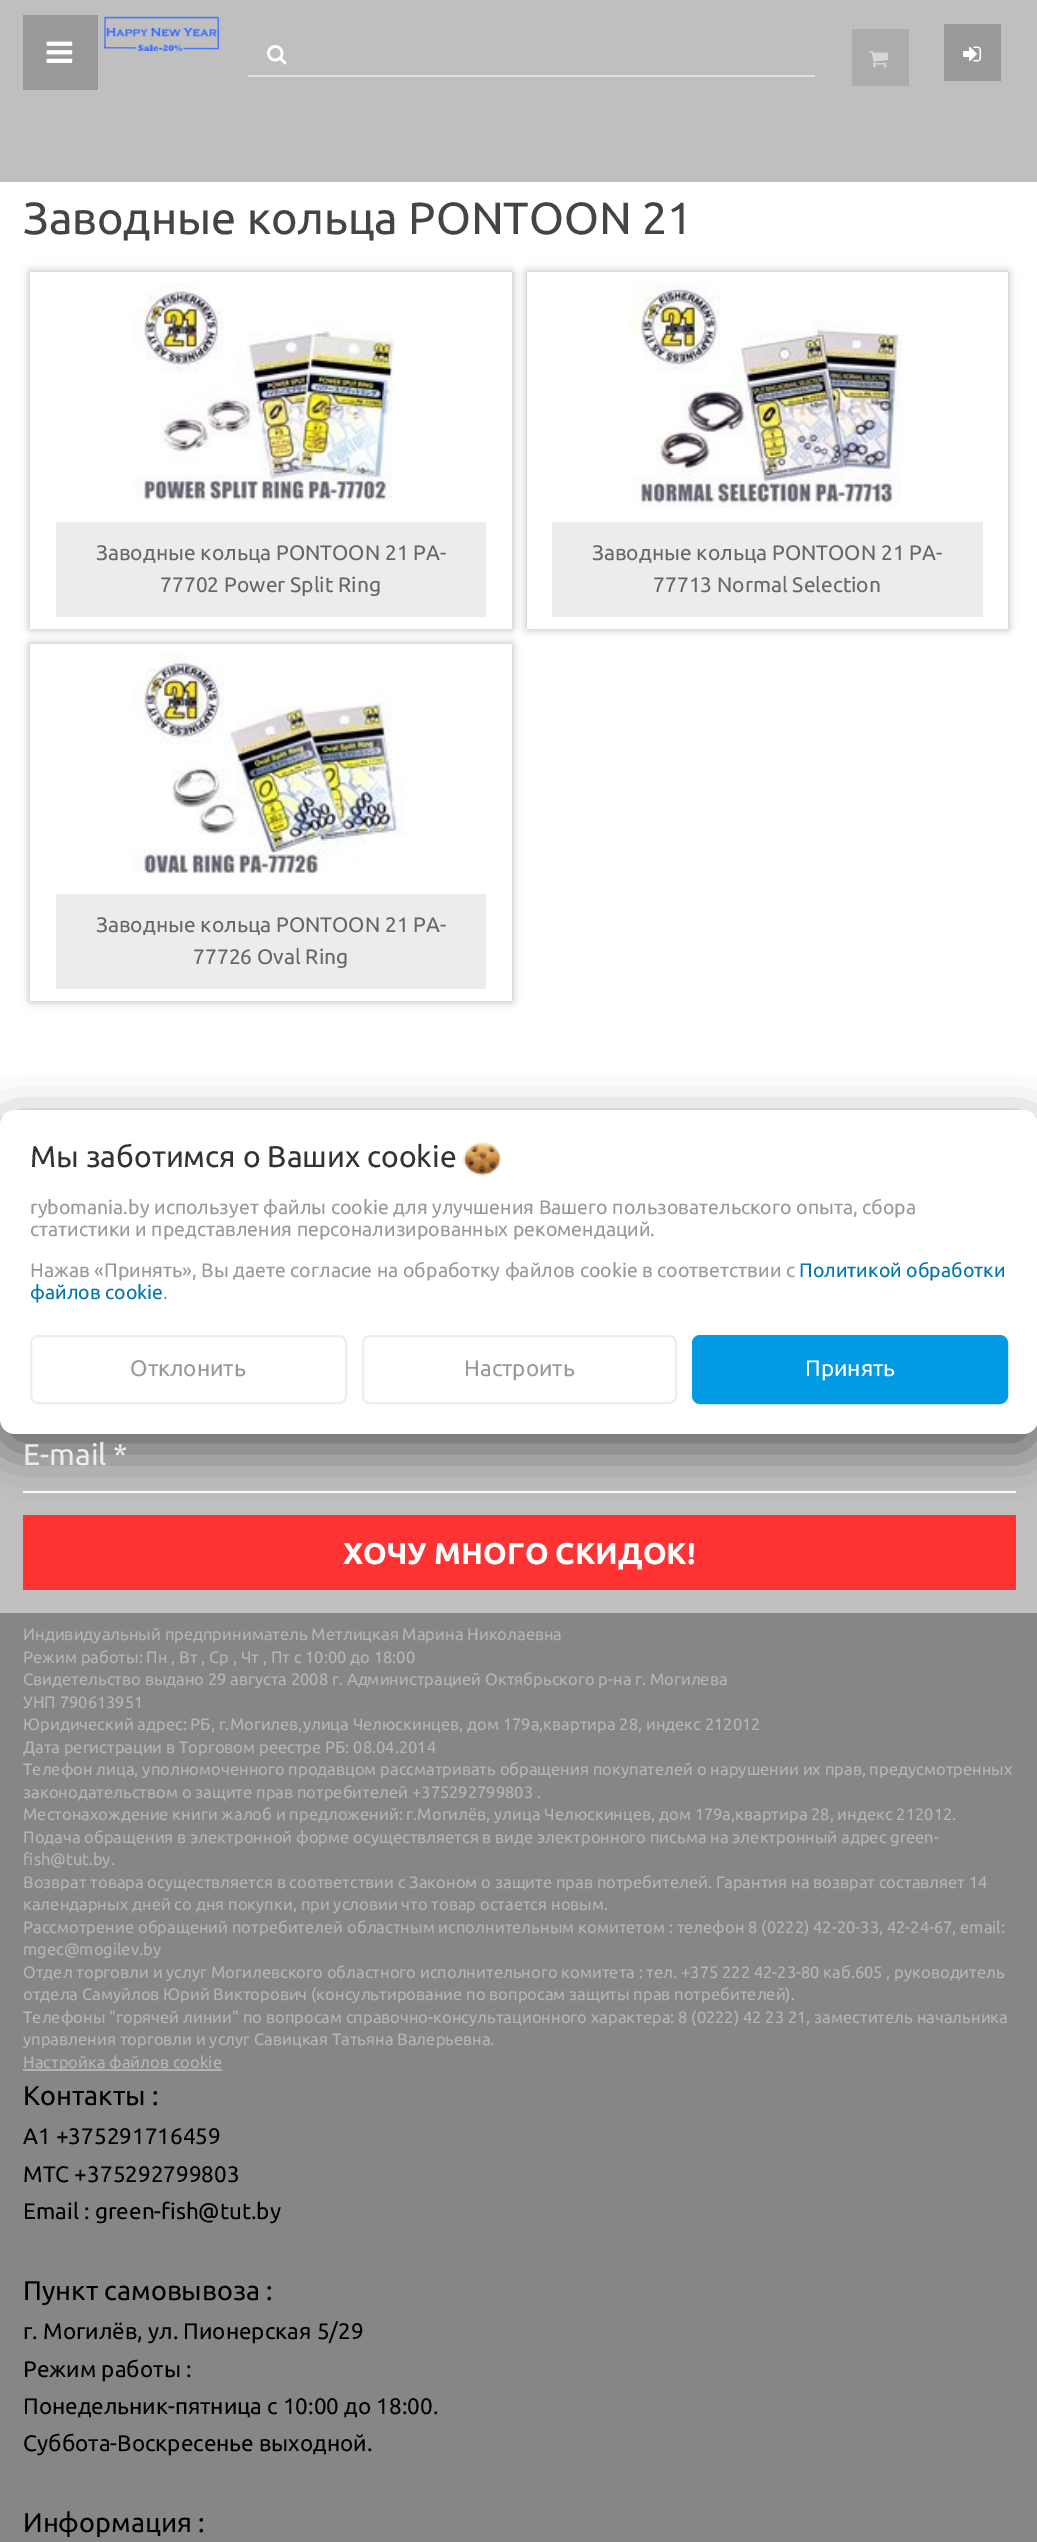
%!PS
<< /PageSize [1037 2542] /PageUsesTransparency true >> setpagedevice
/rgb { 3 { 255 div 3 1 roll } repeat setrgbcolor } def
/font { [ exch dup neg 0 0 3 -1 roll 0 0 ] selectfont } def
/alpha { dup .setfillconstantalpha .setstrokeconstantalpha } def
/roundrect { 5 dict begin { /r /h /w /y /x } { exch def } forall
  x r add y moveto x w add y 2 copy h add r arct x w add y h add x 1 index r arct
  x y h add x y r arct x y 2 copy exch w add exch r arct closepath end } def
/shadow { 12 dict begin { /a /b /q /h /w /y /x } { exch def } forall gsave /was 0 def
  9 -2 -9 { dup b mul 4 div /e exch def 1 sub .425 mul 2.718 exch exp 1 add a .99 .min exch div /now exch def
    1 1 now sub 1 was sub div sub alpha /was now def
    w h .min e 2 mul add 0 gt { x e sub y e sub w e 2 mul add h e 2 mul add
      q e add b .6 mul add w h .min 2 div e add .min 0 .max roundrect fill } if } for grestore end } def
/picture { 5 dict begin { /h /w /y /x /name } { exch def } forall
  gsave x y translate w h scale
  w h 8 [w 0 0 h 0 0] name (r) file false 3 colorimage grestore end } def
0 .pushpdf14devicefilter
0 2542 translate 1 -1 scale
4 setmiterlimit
191 191 191 rgb
0 0 1037 2542 rectfill
153 153 153 rgb
23 15 75 75 rectfill
(img/1.rgb) 46 41 27 22 picture
(img/2.rgb) 104 16 115 35 picture
223 223 223 rgb
248 75 567 2 rectfill
(img/3.rgb) 267 45 20 20 picture
172 172 172 rgb
852 29 57 57 rectfill
(img/4.rgb) 868 51 20 17 picture
153 153 153 rgb
944 24 57 57 rectfill
(img/5.rgb) 963 46 18 16 picture
255 255 255 rgb
0 182 1037 943 rectfill
0 0 0 rgb
30 272 482 357 0 4.5 0.3 shadow
255 255 255 rgb
30 272 482 357 rectfill
(img/6.rgb) 133 282 262 219 picture
236 236 236 rgb
56 522 430 95 rectfill
0 0 0 rgb
527 272 481 357 0 4.5 0.3 shadow
255 255 255 rgb
527 272 481 357 rectfill
(img/7.rgb) 630 282 275 225 picture
236 236 236 rgb
552 522 431 95 rectfill
0 0 0 rgb
30 644 482 357 0 4.5 0.3 shadow
255 255 255 rgb
30 644 482 357 rectfill
(img/8.rgb) 133 654 273 221 picture
[
  [56 894 430 95 236 236 236]
  [23 1491 993 2 255 255 255]
  [23 1515 993 75 255 51 51]
  [0 1613 1037 929 134 134 134]
  [23 2069 199 2 178 178 178]
] { aload pop rgb rectfill } forall
0 0 0 rgb
0 1125 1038 324 15 22.5 0.26 shadow
0 1125 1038 324 15 22.5 0.26 shadow
255 255 255 rgb
0 1110 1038 324 15 roundrect fill
(img/9.rgb) 463 1141 38 35 picture
238 238 238 rgb
2 setlinewidth
31 1336 315 67 7 roundrect stroke
363 1336 313 67 7 roundrect stroke
3 156 228 rgb
693 1336 314 67 7 roundrect gsave fill grestore
stroke
/Ubuntu-Regular 45 font
68 68 68 rgb
23 234 moveto (Заводные кольца PONTOОN 21) show
/Ubuntu-Regular 21 font
102 102 102 rgb
[
  [(Заводные кольца PONTOОN 21 PA-) 96 560]
  [(77702 Power Split Ring) 160 592]
  [(Заводные кольца PONTOОN 21 PA-) 592 560]
  [(77713 Normal Selection) 653 592]
  [(Заводные кольца PONTOОN 21 PA-) 96 932]
  [(77726 Oval Ring) 193 964]
] { aload pop moveto show } forall
/Ubuntu-Regular 30 font
236 236 236 rgb
23 1465 moveto (E-mail *) show
/Ubuntu-Bold 30 font
255 255 255 rgb
343 1564 moveto (ХОЧУ МНОГО СКИДОК!) show
/Ubuntu-Regular 16.5 font
182 182 182 rgb
[
  [(Индивидуальный предприниматель Метлицкая Марина Николаевна) 23 1640]
  [(Режим работы: Пн , Вт , Ср , Чт , Пт c 10:00 до 18:00) 23 1663]
  [(Свидетельство выдано 29 августа 2008 г. Администрацией Октябрьского р-на г. Могилева) 23 1685]
  [(УНП 790613951) 23 1708]
  [(Юридический адрес: РБ, г.Могилев,улица Челюскинцев, дом 179а,квартира 28, индекс 212012) 23 1730]
  [(Дата регистрации в Торговом реестре РБ: 08.04.2014) 23 1753]
  [(Телефон лица, уполномоченного продавцом рассматривать обращения покупателей о нарушении их прав, предусмотренных) 23 1775]
  [(законодательством о защите прав потребителей +375292799803 .) 23 1798]
  [(Местонахождение книги жалоб и предложений: г.Могилёв, улица Челюскинцев, дом 179а,квартира 28, индекс 212012.) 23 1820]
  [(Подача обращения в электронной форме осуществляется в виде электронного письма на электронный адрес green-) 23 1843]
  [(fish@tut.by.) 23 1865]
  [(Возврат товара осуществляется в соответствии с Законом о защите прав потребителей. Гарантия на возврат составляет 14) 23 1888]
  [(календарных дней со дня покупки, при условии что товар остается новым.) 23 1910]
  [(Рассмотрение обращений потребителей областным исполнительным комитетом : телефон 8 \(0222\) 42-20-33, 42-24-67, email:) 23 1933]
  [(mgec@mogilev.by) 23 1955]
  [(Отдел торговли и услуг Могилевского областного исполнительного комитета : тел. +375 222 42-23-80 каб.605 , руководитель) 23 1978]
  [(отдела Самуйлов Юрий Викторович \(консультирование по вопросам защиты прав потребителей\).) 23 2000]
  [(Телефоны "горячей линии" по вопросам справочно-консультационного характера: 8 \(0222\) 42 23 21, заместитель начальника) 23 2023]
  [(управления торговли и услуг Савицкая Татьяна Валерьевна.) 23 2045]
  [(Настройка файлов cookie) 23 2068]
] { aload pop moveto show } forall
/Ubuntu-Regular 27 font
0 0 0 rgb
23 2105 moveto (Контакты :) show
/Ubuntu-Regular 22.5 font
[
  [(A1 +375291716459) 23 2144]
  [(MTC +375292799803) 23 2182]
  [(Email : green-fish@tut.by) 23 2219]
] { aload pop moveto show } forall
/Ubuntu-Regular 27 font
23 2300 moveto (Пункт самовывоза :) show
/Ubuntu-Regular 22.5 font
[
  [(г. Могилёв, ул. Пионерская 5/29) 23 2339]
  [(Режим работы :) 23 2377]
  [(Понедельник-пятница с 10:00 до 18:00.) 23 2414]
  [(Суббота-Воскресенье выходной.) 23 2451]
] { aload pop moveto show } forall
/Ubuntu-Regular 27 font
23 2532 moveto (Информация :) show
/Ubuntu-Regular 30 font
51 51 51 rgb
30 1167 moveto (Мы заботимся о Ваших cookie) show
/Ubuntu-Regular 19.5 font
153 153 153 rgb
[
  [(rybomania.by использует файлы cookie для улучшения Вашего пользовательского опыта, сбора) 30 1214]
  [(статистики и представления персонализированных рекомендаций.) 30 1236]
  [(Нажав «Принять», Вы даете согласие на обработку файлов cookie в соответствии с) 30 1277]
] { aload pop moveto show } forall
1 118 172 rgb
799 1277 moveto (Политикой обработки) show
30 1299 moveto (файлов cookie) show
153 153 153 rgb
163 1299 moveto (.) show
/Ubuntu-Regular 22.5 font
130 1376 moveto (Отклонить) show
464 1376 moveto (Настроить) show
255 255 255 rgb
805 1376 moveto (Принять) show
.poppdf14devicefilter showpage
